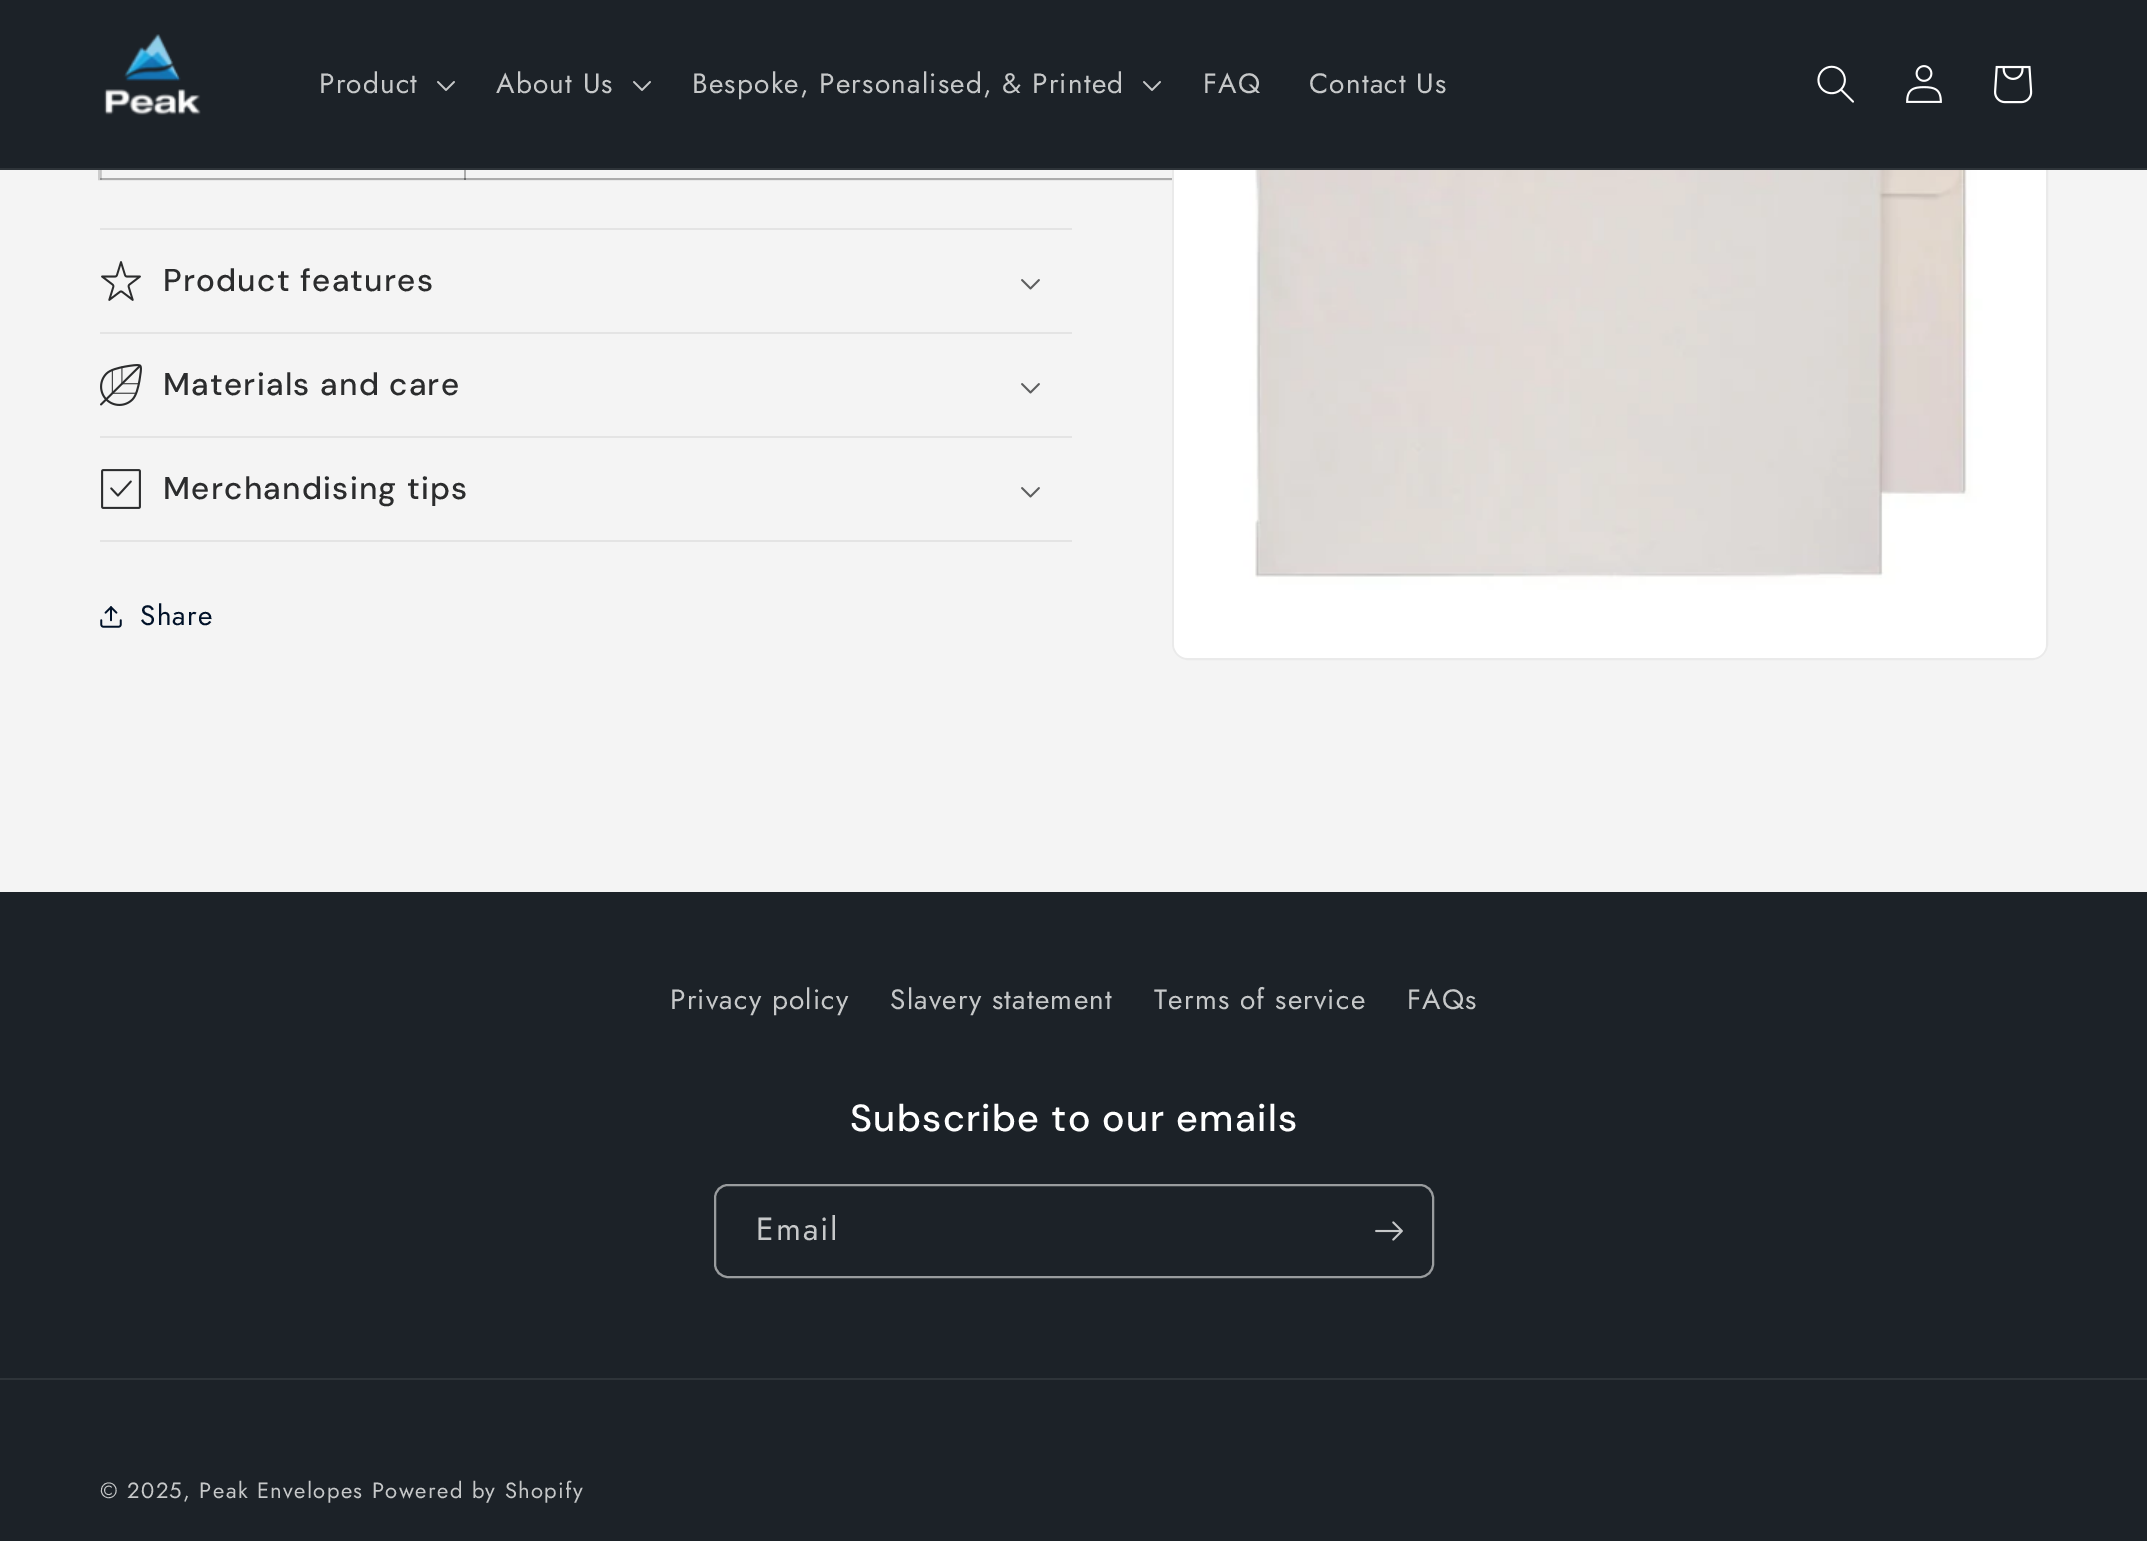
%!PS
<< /PageSize [2147 1541] /PageUsesTransparency true >> setpagedevice
/rgb { 3 { 255 div 3 1 roll } repeat setrgbcolor } def
/font { [ exch dup neg 0 0 3 -1 roll 0 0 ] selectfont } def
/alpha { dup .setfillconstantalpha .setstrokeconstantalpha } def
/roundrect { 5 dict begin { /r /h /w /y /x } { exch def } forall
  x r add y moveto x w add y 2 copy h add r arct x w add y h add x 1 index r arct
  x y h add x y r arct x y 2 copy exch w add exch r arct closepath end } def
/picture { 5 dict begin { /h /w /y /x /name } { exch def } forall
  gsave x y translate w h scale
  w h 8 [w 0 0 h 0 0] name (r) file false 3 colorimage grestore end } def
0 .pushpdf14devicefilter
0 1541 translate 1 -1 scale
4 setmiterlimit
244 244 244 rgb
0 0 2147 1541 rectfill
204 204 204 rgb
2 setlinewidth
99 -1 1086 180 rectstroke
234 234 234 rgb
1173 -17 874 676 15 roundrect stroke
28 34 40 rgb
0 0 2147 168 rectfill
46 52 57 rgb
0 168 2147 2 rectfill
(img/1.rgb) 104 34 97 81 picture
(img/2.rgb) 437 81 18 10 picture
(img/2.rgb) 633 81 18 10 picture
(img/2.rgb) 1143 81 18 10 picture
(img/3.rgb) 1817 65 37 38 picture
(img/4.rgb) 1906 65 36 38 picture
(img/5.rgb) 1994 65 39 39 picture
0.2 alpha
[
  [464 178 708 2 43 44 45]
  [464 170 2 10 43 44 45]
  [464 170 2 10 43 44 45]
  [100 178 366 2 43 44 45]
  [100 170 2 10 43 44 45]
] { aload pop rgb rectfill } forall
1 alpha
[
  [100 228 972 2 228 228 228]
  [100 332 972 2 228 228 228]
] { aload pop rgb rectfill } forall
(img/6.rgb) 101 261 40 40 picture
(img/7.rgb) 1021 279 19 11 picture
100 436 972 2 rectfill
(img/8.rgb) 100 364 42 42 picture
(img/7.rgb) 1021 383 19 11 picture
100 540 972 2 rectfill
(img/9.rgb) 101 469 40 40 picture
(img/7.rgb) 1021 487 19 11 picture
(img/10.rgb) 100 606 22 22 picture
(img/11.rgb) 1174 170 872 488 picture
28 34 40 rgb
0 892 2147 649 rectfill
153 156 158 rgb
715 1185 718 92 13 roundrect stroke
(img/12.rgb) 1375 1221 28 20 picture
46 52 57 rgb
0 1378 2147 2 rectfill
/Jost-Regular 28 font
198 200 201 rgb
319 93 moveto 1.2 0 (Product) ashow
496 93 moveto 1.2 0 (About Us) ashow
692 93 moveto 1.2 0 (Bespoke, Personalised, & Printed) ashow
1203 93 moveto 1.2 0 (FAQ) ashow
1309 93 moveto 1.2 0 (Contact Us) ashow
/DMSans-Medium 31.5 font
43 44 45 rgb
163 291 moveto 1.25 0 (Product features) ashow
163 395 moveto 1.25 0 (Materials and care) ashow
163 499 moveto 1.25 0 (Merchandising tips) ashow
/Jost-Regular 28 font
0 17 40 rgb
140 625 moveto 1.2 0 (Share) ashow
198 200 201 rgb
670 1009 moveto 1.2 0 (Privacy policy) ashow
890 1009 moveto 1.2 0 (Slavery statement) ashow
1154 1009 moveto 1.2 0 (Terms of service) ashow
1407 1009 moveto 1.2 0 (FAQs) ashow
/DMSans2-Medium 37.75 font
255 255 255 rgb
850 1131 moveto 1.25 0 (Subscribe to our emails) ashow
/Jost-Regular 32 font
198 200 201 rgb
756 1240 moveto 2 0 (Email) ashow
/Jost-Regular 22 font
100 1498 moveto 1.4 0 (© 2025, Peak Envelopes) ashow
372 1498 moveto 1.4 0 (Powered by Shopify) ashow
.poppdf14devicefilter showpage
